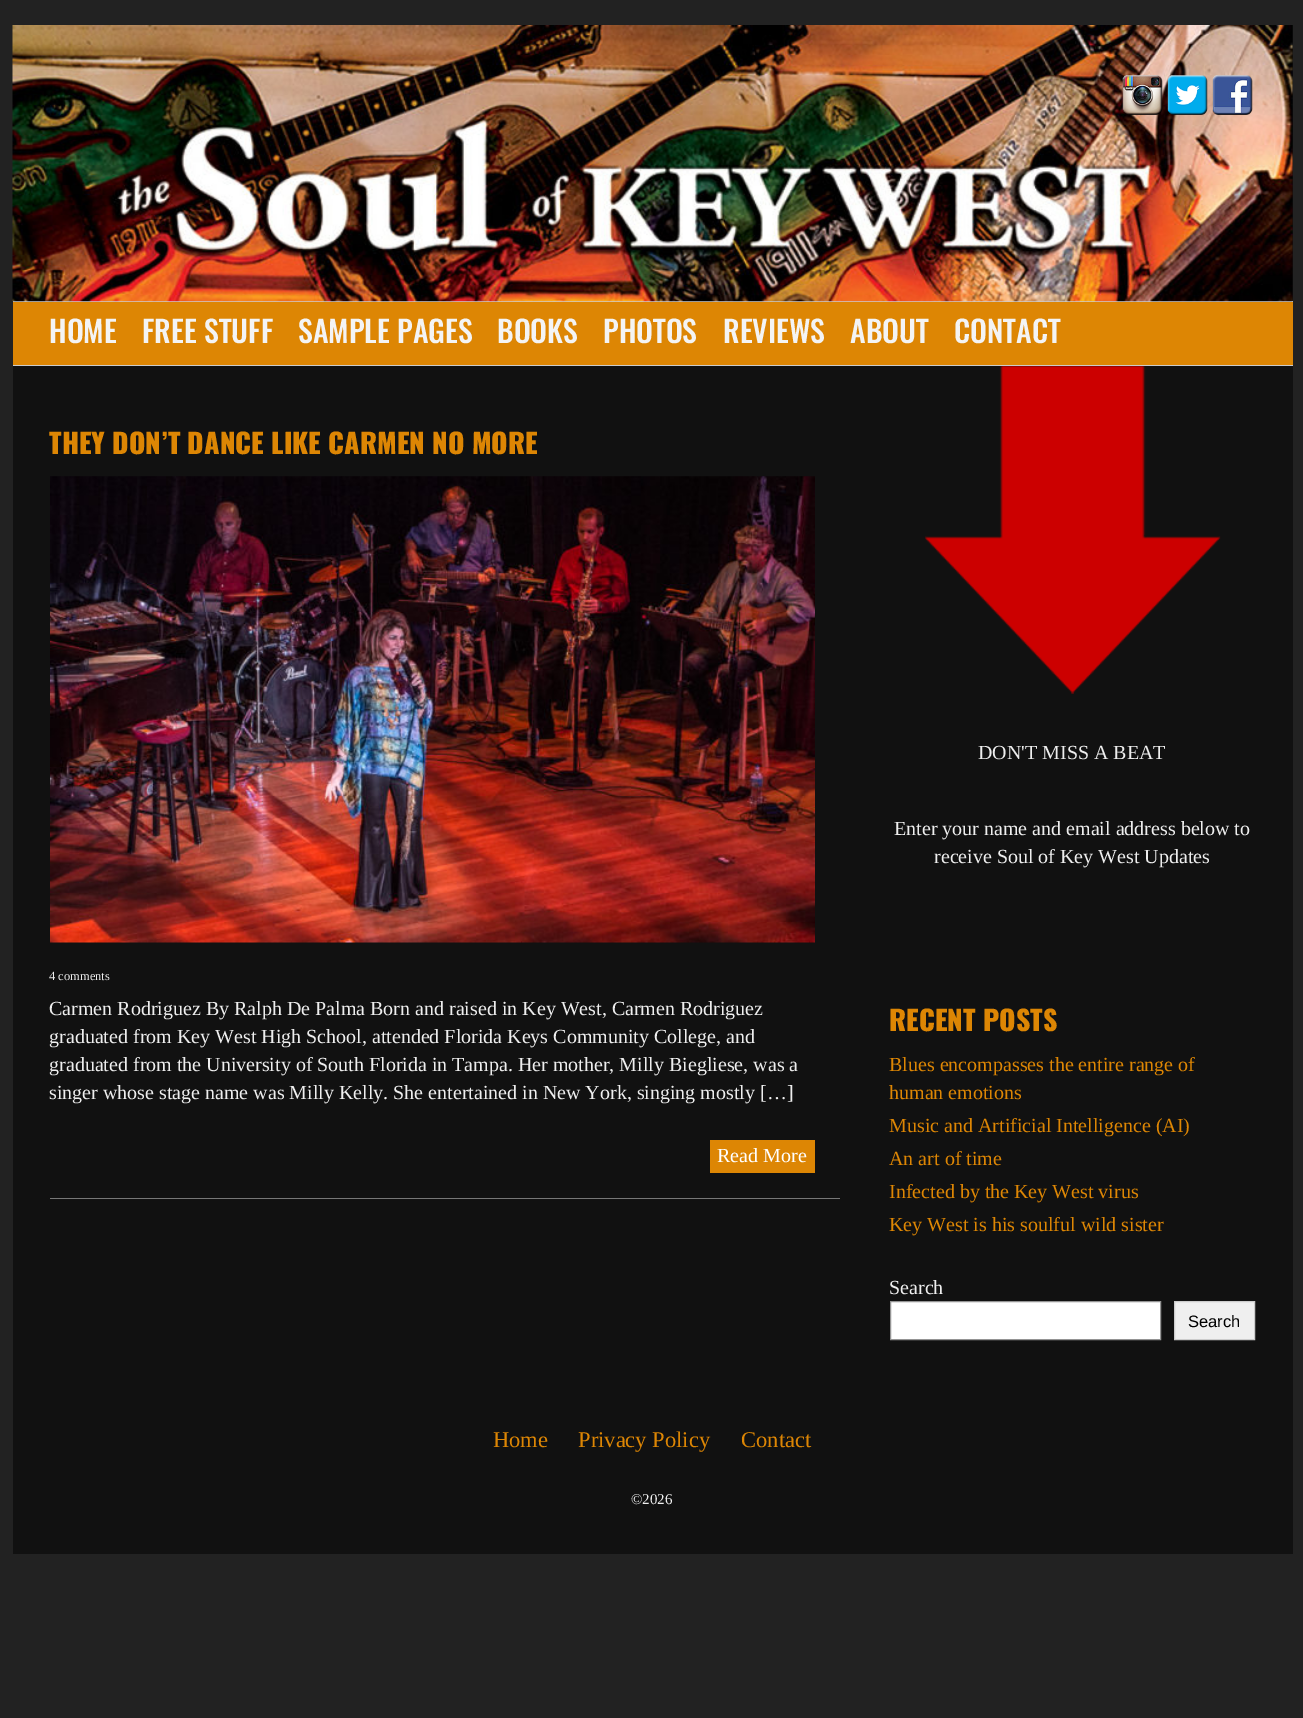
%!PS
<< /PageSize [1303 1718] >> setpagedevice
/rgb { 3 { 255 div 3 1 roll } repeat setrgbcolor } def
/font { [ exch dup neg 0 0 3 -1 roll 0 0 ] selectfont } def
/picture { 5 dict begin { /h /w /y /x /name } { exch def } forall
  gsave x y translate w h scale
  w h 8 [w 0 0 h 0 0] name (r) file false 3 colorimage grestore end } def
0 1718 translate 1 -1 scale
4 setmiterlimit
34 34 34 rgb
0 0 1303 1718 rectfill
17 17 17 rgb
1292 25 1 276 rectfill
204 204 204 rgb
13 301 1280 1 rectfill
(img/1.rgb) 12 25 1281 277 picture
(img/2.rgb) 1122 75 41 40 picture
(img/3.rgb) 1167 75 41 40 picture
(img/4.rgb) 1212 75 41 40 picture
[
  [13 302 1280 63 221 134 4]
  [13 365 1280 1 204 204 204]
  [13 366 1280 1188 17 17 17]
  [50 1198 790 1 119 119 119]
] { aload pop rgb rectfill } forall
(img/5.rgb) 50 476 765 467 picture
221 134 4 rgb
710 1140 105 33 rectfill
(img/6.rgb) 925 366 296 328 picture
255 255 255 rgb
890.5 1301.5 moveto 1160.5 1301.5 lineto 1160.5 1339.5 lineto 890.5 1339.5 lineto closepath gsave fill grestore
148 148 148 rgb
stroke
239 239 239 rgb
1174.5 1301.5 moveto 1254.5 1301.5 lineto 1254.5 1339.5 lineto 1174.5 1339.5 lineto closepath gsave fill grestore
204 204 204 rgb
stroke
/Oswald-Medium 30 font
244 244 244 rgb
[
  [(HOME) 49 343]
  [(FREE STUFF) 142 343]
  [(SAMPLE PAGES) 298 343]
  [(BOOKS) 497 343]
  [(PHOTOS) 603 343]
  [(REVIEWS) 723 343]
  [(ABOUT) 850 343]
  [(CONTACT) 954 343]
] { aload pop moveto show } forall
/Oswald-Black 27.5 font
221 134 4 rgb
49 454 moveto (THEY DON’T DANCE LIKE CARMEN NO MORE) show
/LiberationSerif-Regular 12.5 font
238 238 238 rgb
49 980 moveto (4 comments) show
/LiberationSerif-Regular 20 font
[
  [(Carmen Rodriguez By Ralph De Palma Born and raised in Key West, Carmen Rodriguez) 49 1015]
  [(graduated from Key West High School, attended Florida Keys Community College, and) 49 1043]
  [(graduated from the University of South Florida in Tampa. Her mother, Milly Biegliese, was a) 49 1071]
  [(singer whose stage name was Milly Kelly. She entertained in New York, singing mostly […]) 49 1099]
] { aload pop moveto show } forall
255 255 255 rgb
717 1162 moveto (Read More) show
238 238 238 rgb
[
  [(DON'T MISS A BEAT) 978 759]
  [(Enter your name and email address below to) 894 835]
  [(receive Soul of Key West Updates) 934 863]
] { aload pop moveto show } forall
/Oswald-Black 27.5 font
221 134 4 rgb
889 1031 moveto (RECENT POSTS) show
/LiberationSerif-Regular 20 font
[
  [(Blues encompasses the entire range of) 889 1071]
  [(human emotions) 889 1099]
  [(Music and Artificial Intelligence \(AI\)) 889 1132]
  [(An art of time) 889 1165]
  [(Infected by the Key West virus) 889 1198]
  [(Key West is his soulful wild sister) 889 1231]
] { aload pop moveto show } forall
238 238 238 rgb
889 1294 moveto (Search) show
/LiberationSans-Regular 16.5 font
0 0 0 rgb
1188 1327 moveto (Search) show
/LiberationSerif-Regular 22.5 font
221 134 4 rgb
[
  [(Home) 493 1447]
  [(Privacy Policy) 578 1447]
  [(Contact) 741 1447]
] { aload pop moveto show } forall
/LiberationSerif-Regular 15 font
238 238 238 rgb
631 1504 moveto (©2026) show
showpage
